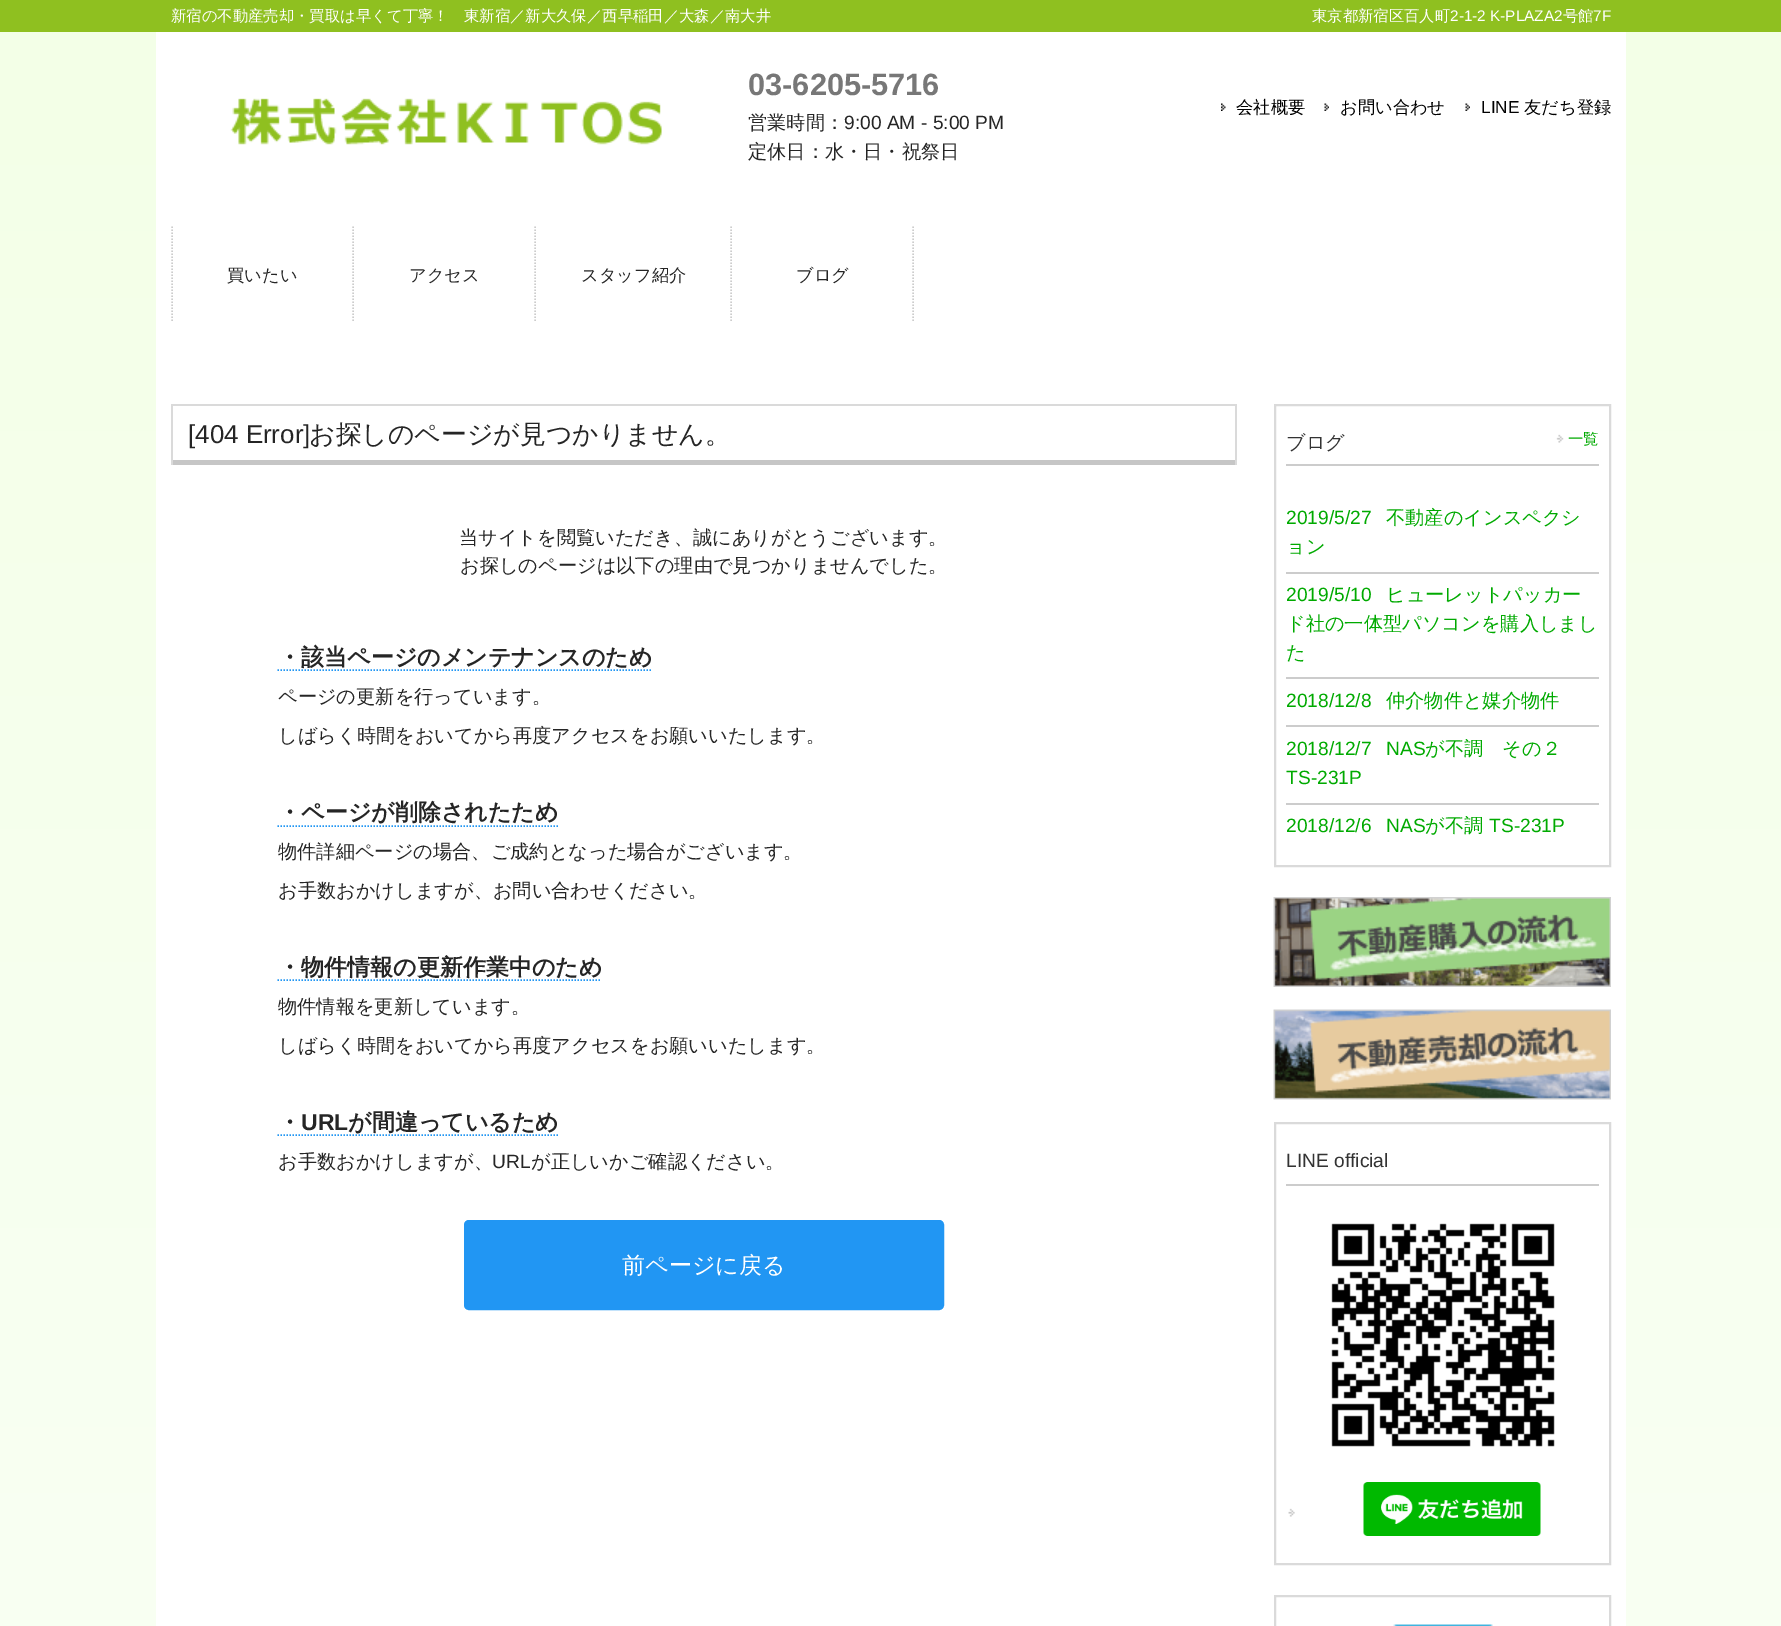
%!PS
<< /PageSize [1781 1626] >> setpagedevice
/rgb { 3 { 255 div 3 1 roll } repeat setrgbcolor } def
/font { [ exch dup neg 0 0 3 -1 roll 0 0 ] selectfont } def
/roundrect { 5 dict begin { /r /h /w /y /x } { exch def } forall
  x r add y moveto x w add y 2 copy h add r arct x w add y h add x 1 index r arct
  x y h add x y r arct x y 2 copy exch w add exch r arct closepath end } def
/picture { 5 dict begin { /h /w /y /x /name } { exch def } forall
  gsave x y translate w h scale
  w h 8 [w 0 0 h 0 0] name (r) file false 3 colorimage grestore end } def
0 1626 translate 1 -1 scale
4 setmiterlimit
255 255 255 rgb
0 0 1781 1626 rectfill
gsave 0 32 moveto 1781 32 lineto 1781 1626 lineto 0 1626 lineto closepath clip newpath
<< /ShadingType 2 /ColorSpace /DeviceRGB /Coords [891 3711 891 0] /Extend [true true] /Function << /FunctionType 3 /Domain [0 1] /Functions [<< /FunctionType 2 /Domain [0 1] /C0 [1 1 1] /C1 [1 1 1] /N 1 >> << /FunctionType 2 /Domain [0 1] /C0 [1 1 1] /C1 [0.953 1 0.906] /N 1 >>] /Bounds [0.1] /Encode [0 1 0 1] >> >> shfill grestore
143 192 32 rgb
0 0 1781 32 rectfill
255 255 255 rgb
156 32 1470 1594 rectfill
(img/1.rgb) 230 98 432 47 picture
(img/2.rgb) 1221 103 5 8 picture
(img/3.rgb) 1324 103 5 8 picture
(img/3.rgb) 1465 103 5 8 picture
204 204 204 rgb
1.5 setlinewidth
[1.5 1.5] 0 setdash
353 226.5 moveto 353 321 lineto stroke
172 226.5 moveto 172 321 lineto stroke
535 226.5 moveto 535 321 lineto stroke
731 226.5 moveto 731 321 lineto stroke
913 226.5 moveto 913 321 lineto stroke
[
  [171 460 1065 5 198 198 198]
  [171 404 1065 2 218 218 218]
  [1235 404 2 61 218 218 218]
  [171 404 2 61 218 218 218]
] { aload pop rgb rectfill } forall
33 150 243 rgb
277.5 670 moveto 652.5 670 lineto stroke
277.5 826 moveto 558 826 lineto stroke
277.5 980 moveto 601.5 980 lineto stroke
277.5 1135 moveto 559.5 1135 lineto stroke
466.5 1222.5 475 85 2.5 roundrect gsave fill grestore
5 setlinewidth
[] 0 setdash
stroke
218 218 218 rgb
2 setlinewidth
1275 405 335 461 rectstroke
204 204 204 rgb
1286 464 313 2 rectfill
(img/4.rgb) 1556 434 8 9 picture
[
  [1286 572 313 2 204 204 204]
  [1286 677 313 2 204 204 204]
  [1286 725 313 2 204 204 204]
  [1286 803 313 2 204 204 204]
] { aload pop rgb rectfill } forall
(img/5.rgb) 1273 897 338 90 picture
(img/6.rgb) 1273 1009 338 91 picture
218 218 218 rgb
1275 1123 335 441 rectstroke
204 204 204 rgb
1286 1184 313 2 rectfill
(img/7.rgb) 1331 1223 224 224 picture
(img/8.rgb) 1288 1508 7 9 picture
(img/9.rgb) 1363 1482 178 54 picture
218 218 218 rgb
1275 1596 335 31 rectstroke
(img/10.rgb) 1393 1624 100 2 picture
/WenQuanYiZenHei-Medium 15.35 font
255 255 255 rgb
171 21 moveto (新宿の不動産売却・買取は早くて丁寧！　東新宿／新大久保／西早稲田／大森／南大井) show
1312 21 moveto (東京都新宿区百人町) show
/LiberationSans-Regular 15.35 font
1450 21 moveto (2-1-2 K-PLAZA2) show
/WenQuanYiZenHei-Medium 15.35 font
1563 21 moveto (号館) show
/LiberationSans-Regular 15.35 font
1593 21 moveto (7F) show
/LiberationSans-Bold 30.75 font
119 119 119 rgb
748 95 moveto (03-6205-5716) show
/WenQuanYiZenHei-Medium 19.2 font
37 37 37 rgb
748 129 moveto (営業時間：) show
/LiberationSans-Regular 19.2 font
844 129 moveto (9:00 AM - 5:00 PM) show
/WenQuanYiZenHei-Medium 19.2 font
748 158 moveto (定休日：水・日・祝祭日) show
/WenQuanYiZenHei-Medium 17.25 font
0 0 0 rgb
1236 113 moveto (会社概要) show
1340 113 moveto (お問い合わせ) show
/LiberationSans-Regular 17.25 font
1481 113 moveto (LINE) show
/WenQuanYiZenHei-Medium 17.25 font
1524 113 moveto (友だち登録) show
37 37 37 rgb
[
  [(買いたい) 227 281]
  [(アクセス) 409 281]
  [(スタッフ紹介) 581 281]
  [(ブログ) 796 281]
] { aload pop moveto show } forall
/LiberationSans-Regular 25.9 font
188 443 moveto ([404 Error]) show
/WenQuanYiZenHei-Medium 25.9 font
309 443 moveto (お探しのページが見つかりません。) show
/WenQuanYiZenHei-Medium 19.2 font
459 544 moveto (当サイトを閲覧いただき、誠にありがとうございます。) show
460 572 moveto (お探しのページは以下の理由で見つかりませんでした。) show
/WenQuanYiZenHei-Bold 23 font
278 665 moveto (・該当ページのメンテナンスのため) show
/WenQuanYiZenHei-Medium 19.2 font
278 703 moveto (ページの更新を行っています。) show
278 742 moveto (しばらく時間をおいてから再度アクセスをお願いいたします。) show
/WenQuanYiZenHei-Bold 23 font
278 820 moveto (・ページが削除されたため) show
/WenQuanYiZenHei-Medium 19.2 font
278 858 moveto (物件詳細ページの場合、ご成約となった場合がございます。) show
278 897 moveto (お手数おかけしますが、お問い合わせください。) show
/WenQuanYiZenHei-Bold 23 font
278 975 moveto (・物件情報の更新作業中のため) show
/WenQuanYiZenHei-Medium 19.2 font
278 1013 moveto (物件情報を更新しています。) show
278 1052 moveto (しばらく時間をおいてから再度アクセスをお願いいたします。) show
/WenQuanYiZenHei-Bold 23 font
278 1130 moveto (・) show
/LiberationSans-Bold 23 font
301 1130 moveto (URL) show
/WenQuanYiZenHei-Bold 23 font
348 1130 moveto (が間違っているため) show
/WenQuanYiZenHei-Medium 19.2 font
278 1168 moveto (お手数おかけしますが、) show
/LiberationSans-Regular 19.2 font
492 1168 moveto (URL) show
/WenQuanYiZenHei-Medium 19.2 font
531 1168 moveto (が正しいかご確認ください。) show
/WenQuanYiZenHei-Medium 23 font
255 255 255 rgb
622 1273 moveto (前ページに戻る) show
/WenQuanYiZenHei-Medium 19.2 font
51 51 51 rgb
1286 449 moveto (ブログ) show
/WenQuanYiZenHei-Medium 15.35 font
0 170 0 rgb
1568 444 moveto (一覧) show
/LiberationSans-Regular 19.2 font
1286 524 moveto (2019/5/27) show
/WenQuanYiZenHei-Medium 19.2 font
1386 524 moveto (不動産のインスペクシ) show
1286 553 moveto (ョン) show
/LiberationSans-Regular 19.2 font
1286 601 moveto (2019/5/10) show
/WenQuanYiZenHei-Medium 19.2 font
[
  [(ヒューレットパッカー) 1386 601]
  [(ド社の一体型パソコンを購入しまし) 1286 630]
  [(た) 1286 659]
] { aload pop moveto show } forall
/LiberationSans-Regular 19.2 font
1286 707 moveto (2018/12/8) show
/WenQuanYiZenHei-Medium 19.2 font
1386 707 moveto (仲介物件と媒介物件) show
/LiberationSans-Regular 19.2 font
1286 755 moveto (2018/12/7) show
1386 755 moveto (NAS) show
/WenQuanYiZenHei-Medium 19.2 font
1425 755 moveto (が不調　その２) show
/LiberationSans-Regular 19.2 font
[
  [(TS-231P) 1286 784]
  [(2018/12/6) 1286 832]
  [(NAS) 1386 832]
] { aload pop moveto show } forall
/WenQuanYiZenHei-Medium 19.2 font
1425 832 moveto (が不調) show
/LiberationSans-Regular 19.2 font
1489 832 moveto (TS-231P) show
51 51 51 rgb
1286 1167 moveto (LINE official) show
showpage
